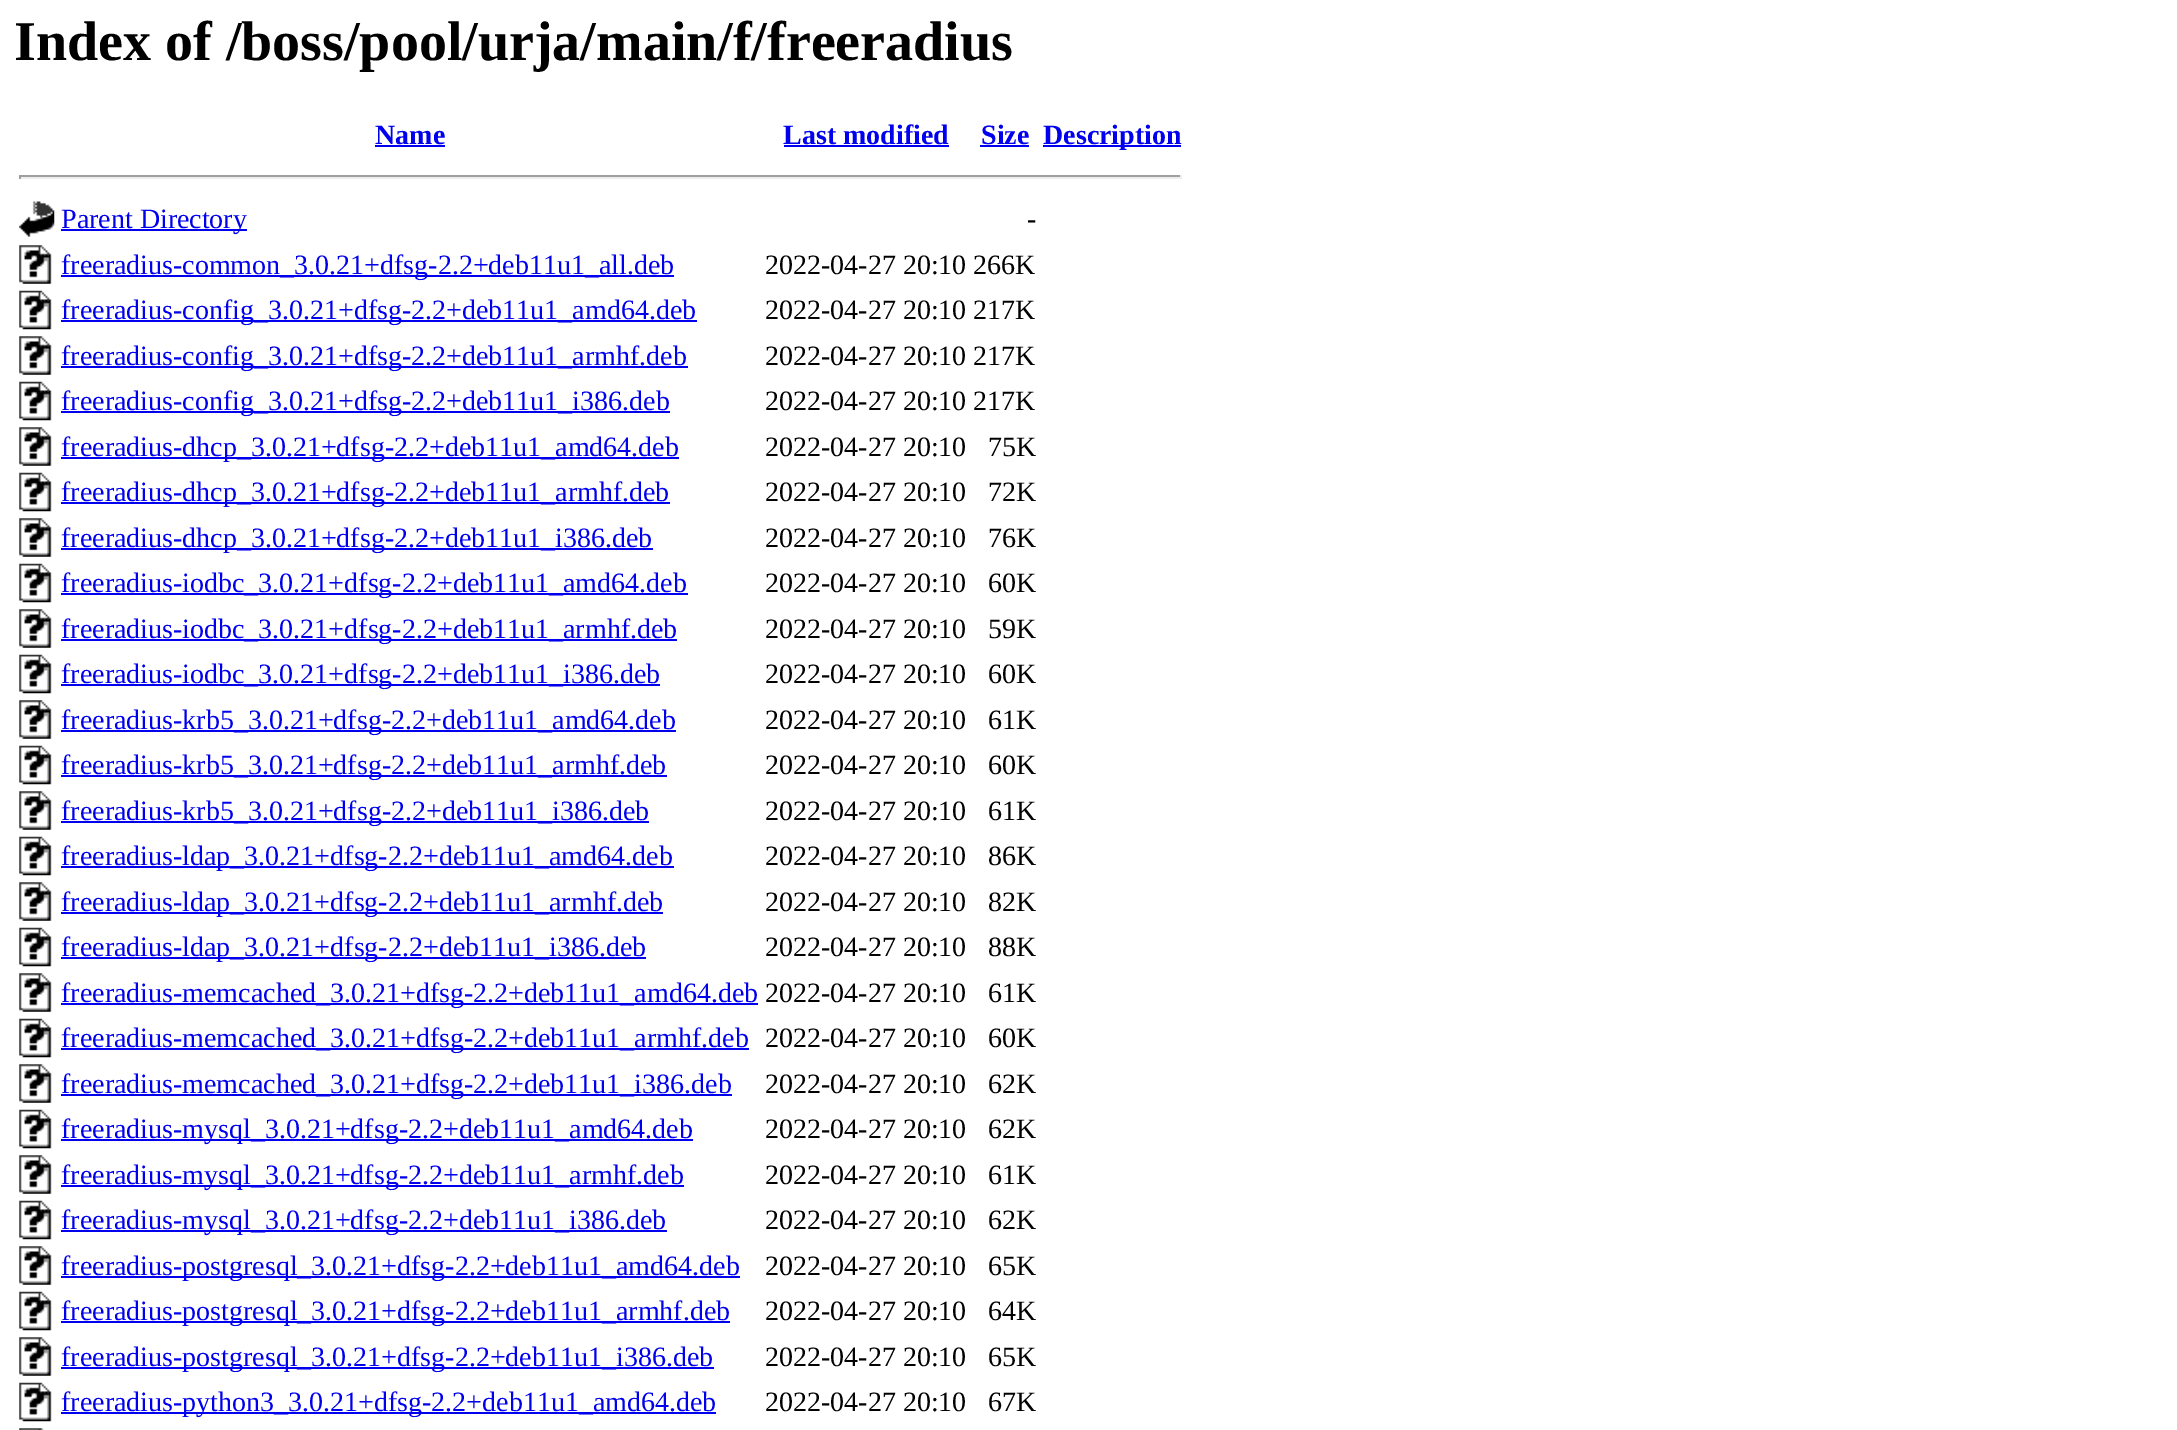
%!PS
<< /PageSize [2177 1430] >> setpagedevice
/rgb { 3 { 255 div 3 1 roll } repeat setrgbcolor } def
/font { [ exch dup neg 0 0 3 -1 roll 0 0 ] selectfont } def
/picture { 5 dict begin { /h /w /y /x /name } { exch def } forall
  gsave x y translate w h scale
  w h 8 [w 0 0 h 0 0] name (r) file false 3 colorimage grestore end } def
0 1430 translate 1 -1 scale
4 setmiterlimit
255 255 255 rgb
0 0 2177 1430 rectfill
[
  [375 145 70 2 0 0 238]
  [784 145 165 2 0 0 238]
  [980 145 49 2 0 0 238]
  [1043 145 138 2 0 0 238]
  [19 175 1162 2 159 159 159]
  [1180 175 2 4 238 238 238]
  [19 177 1162 2 238 238 238]
  [19 175 2 4 159 159 159]
] { aload pop rgb rectfill } forall
(img/1.rgb) 19 201 36 36 picture
0 0 238 rgb
61 229 186 2 rectfill
(img/2.rgb) 19 245 33 39 picture
61 275 613 2 rectfill
(img/3.rgb) 19 290 33 40 picture
61 320 636 2 rectfill
(img/2.rgb) 19 336 33 39 picture
61 366 627 2 rectfill
(img/3.rgb) 19 381 33 40 picture
61 411 609 2 rectfill
(img/2.rgb) 19 427 33 39 picture
61 457 618 2 rectfill
(img/3.rgb) 19 472 33 40 picture
61 502 609 2 rectfill
(img/2.rgb) 19 518 33 39 picture
61 548 592 2 rectfill
(img/3.rgb) 19 563 33 40 picture
61 593 627 2 rectfill
(img/2.rgb) 19 609 33 39 picture
61 639 616 2 rectfill
(img/3.rgb) 19 654 33 40 picture
61 684 599 2 rectfill
(img/2.rgb) 19 700 33 39 picture
61 730 615 2 rectfill
(img/3.rgb) 19 745 33 40 picture
61 775 606 2 rectfill
(img/2.rgb) 19 791 33 39 picture
61 821 588 2 rectfill
(img/3.rgb) 19 836 33 40 picture
61 866 613 2 rectfill
(img/2.rgb) 19 882 33 39 picture
61 912 602 2 rectfill
(img/3.rgb) 19 927 33 40 picture
61 957 585 2 rectfill
(img/2.rgb) 19 973 33 39 picture
61 1003 697 2 rectfill
(img/3.rgb) 19 1018 33 40 picture
61 1048 688 2 rectfill
(img/2.rgb) 19 1064 33 39 picture
61 1094 671 2 rectfill
(img/3.rgb) 19 1109 33 40 picture
61 1139 632 2 rectfill
(img/2.rgb) 19 1155 33 39 picture
61 1185 623 2 rectfill
(img/3.rgb) 19 1200 33 40 picture
61 1230 606 2 rectfill
(img/2.rgb) 19 1246 33 39 picture
61 1276 679 2 rectfill
(img/3.rgb) 19 1291 33 40 picture
61 1321 669 2 rectfill
(img/2.rgb) 19 1337 33 39 picture
61 1367 653 2 rectfill
(img/3.rgb) 19 1382 33 40 picture
61 1412 655 2 rectfill
(img/4.rgb) 19 1428 25 2 picture
/LiberationSerif-Bold 56 font
0 0 0 rgb
14 60 moveto (Index of /boss/pool/urja/main/f/freeradius) show
/LiberationSerif-Bold 28 font
0 0 238 rgb
[
  [(Name) 375 144]
  [(Last modified) 783 144]
  [(Size) 981 144]
  [(Description) 1043 144]
] { aload pop moveto show } forall
/LiberationSerif-Regular 28 font
61 228 moveto (Parent Directory) show
0 0 0 rgb
1027 228 moveto (-) show
0 0 238 rgb
61 274 moveto (freeradius-common_3.0.21+dfsg-2.2+deb11u1_all.deb) show
0 0 0 rgb
765 274 moveto (2022-04-27 20:10 266K) show
0 0 238 rgb
61 319 moveto (freeradius-config_3.0.21+dfsg-2.2+deb11u1_amd64.deb) show
0 0 0 rgb
765 319 moveto (2022-04-27 20:10 217K) show
0 0 238 rgb
61 365 moveto (freeradius-config_3.0.21+dfsg-2.2+deb11u1_armhf.deb) show
0 0 0 rgb
765 365 moveto (2022-04-27 20:10 217K) show
0 0 238 rgb
61 410 moveto (freeradius-config_3.0.21+dfsg-2.2+deb11u1_i386.deb) show
0 0 0 rgb
765 410 moveto (2022-04-27 20:10 217K) show
0 0 238 rgb
61 456 moveto (freeradius-dhcp_3.0.21+dfsg-2.2+deb11u1_amd64.deb) show
0 0 0 rgb
765 456 moveto (2022-04-27 20:10) show
988 456 moveto (75K) show
0 0 238 rgb
61 501 moveto (freeradius-dhcp_3.0.21+dfsg-2.2+deb11u1_armhf.deb) show
0 0 0 rgb
765 501 moveto (2022-04-27 20:10) show
988 501 moveto (72K) show
0 0 238 rgb
61 547 moveto (freeradius-dhcp_3.0.21+dfsg-2.2+deb11u1_i386.deb) show
0 0 0 rgb
765 547 moveto (2022-04-27 20:10) show
988 547 moveto (76K) show
0 0 238 rgb
61 592 moveto (freeradius-iodbc_3.0.21+dfsg-2.2+deb11u1_amd64.deb) show
0 0 0 rgb
765 592 moveto (2022-04-27 20:10) show
988 592 moveto (60K) show
0 0 238 rgb
61 638 moveto (freeradius-iodbc_3.0.21+dfsg-2.2+deb11u1_armhf.deb) show
0 0 0 rgb
765 638 moveto (2022-04-27 20:10) show
988 638 moveto (59K) show
0 0 238 rgb
61 683 moveto (freeradius-iodbc_3.0.21+dfsg-2.2+deb11u1_i386.deb) show
0 0 0 rgb
765 683 moveto (2022-04-27 20:10) show
988 683 moveto (60K) show
0 0 238 rgb
61 729 moveto (freeradius-krb5_3.0.21+dfsg-2.2+deb11u1_amd64.deb) show
0 0 0 rgb
765 729 moveto (2022-04-27 20:10) show
988 729 moveto (61K) show
0 0 238 rgb
61 774 moveto (freeradius-krb5_3.0.21+dfsg-2.2+deb11u1_armhf.deb) show
0 0 0 rgb
765 774 moveto (2022-04-27 20:10) show
988 774 moveto (60K) show
0 0 238 rgb
61 820 moveto (freeradius-krb5_3.0.21+dfsg-2.2+deb11u1_i386.deb) show
0 0 0 rgb
765 820 moveto (2022-04-27 20:10) show
988 820 moveto (61K) show
0 0 238 rgb
61 865 moveto (freeradius-ldap_3.0.21+dfsg-2.2+deb11u1_amd64.deb) show
0 0 0 rgb
765 865 moveto (2022-04-27 20:10) show
988 865 moveto (86K) show
0 0 238 rgb
61 911 moveto (freeradius-ldap_3.0.21+dfsg-2.2+deb11u1_armhf.deb) show
0 0 0 rgb
765 911 moveto (2022-04-27 20:10) show
988 911 moveto (82K) show
0 0 238 rgb
61 956 moveto (freeradius-ldap_3.0.21+dfsg-2.2+deb11u1_i386.deb) show
0 0 0 rgb
765 956 moveto (2022-04-27 20:10) show
988 956 moveto (88K) show
0 0 238 rgb
61 1002 moveto (freeradius-memcached_3.0.21+dfsg-2.2+deb11u1_amd64.deb) show
0 0 0 rgb
765 1002 moveto (2022-04-27 20:10) show
988 1002 moveto (61K) show
0 0 238 rgb
61 1047 moveto (freeradius-memcached_3.0.21+dfsg-2.2+deb11u1_armhf.deb) show
0 0 0 rgb
765 1047 moveto (2022-04-27 20:10) show
988 1047 moveto (60K) show
0 0 238 rgb
61 1093 moveto (freeradius-memcached_3.0.21+dfsg-2.2+deb11u1_i386.deb) show
0 0 0 rgb
765 1093 moveto (2022-04-27 20:10) show
988 1093 moveto (62K) show
0 0 238 rgb
61 1138 moveto (freeradius-mysql_3.0.21+dfsg-2.2+deb11u1_amd64.deb) show
0 0 0 rgb
765 1138 moveto (2022-04-27 20:10) show
988 1138 moveto (62K) show
0 0 238 rgb
61 1184 moveto (freeradius-mysql_3.0.21+dfsg-2.2+deb11u1_armhf.deb) show
0 0 0 rgb
765 1184 moveto (2022-04-27 20:10) show
988 1184 moveto (61K) show
0 0 238 rgb
61 1229 moveto (freeradius-mysql_3.0.21+dfsg-2.2+deb11u1_i386.deb) show
0 0 0 rgb
765 1229 moveto (2022-04-27 20:10) show
988 1229 moveto (62K) show
0 0 238 rgb
61 1275 moveto (freeradius-postgresql_3.0.21+dfsg-2.2+deb11u1_amd64.deb) show
0 0 0 rgb
765 1275 moveto (2022-04-27 20:10) show
988 1275 moveto (65K) show
0 0 238 rgb
61 1320 moveto (freeradius-postgresql_3.0.21+dfsg-2.2+deb11u1_armhf.deb) show
0 0 0 rgb
765 1320 moveto (2022-04-27 20:10) show
988 1320 moveto (64K) show
0 0 238 rgb
61 1366 moveto (freeradius-postgresql_3.0.21+dfsg-2.2+deb11u1_i386.deb) show
0 0 0 rgb
765 1366 moveto (2022-04-27 20:10) show
988 1366 moveto (65K) show
0 0 238 rgb
61 1411 moveto (freeradius-python3_3.0.21+dfsg-2.2+deb11u1_amd64.deb) show
0 0 0 rgb
765 1411 moveto (2022-04-27 20:10) show
988 1411 moveto (67K) show
showpage
